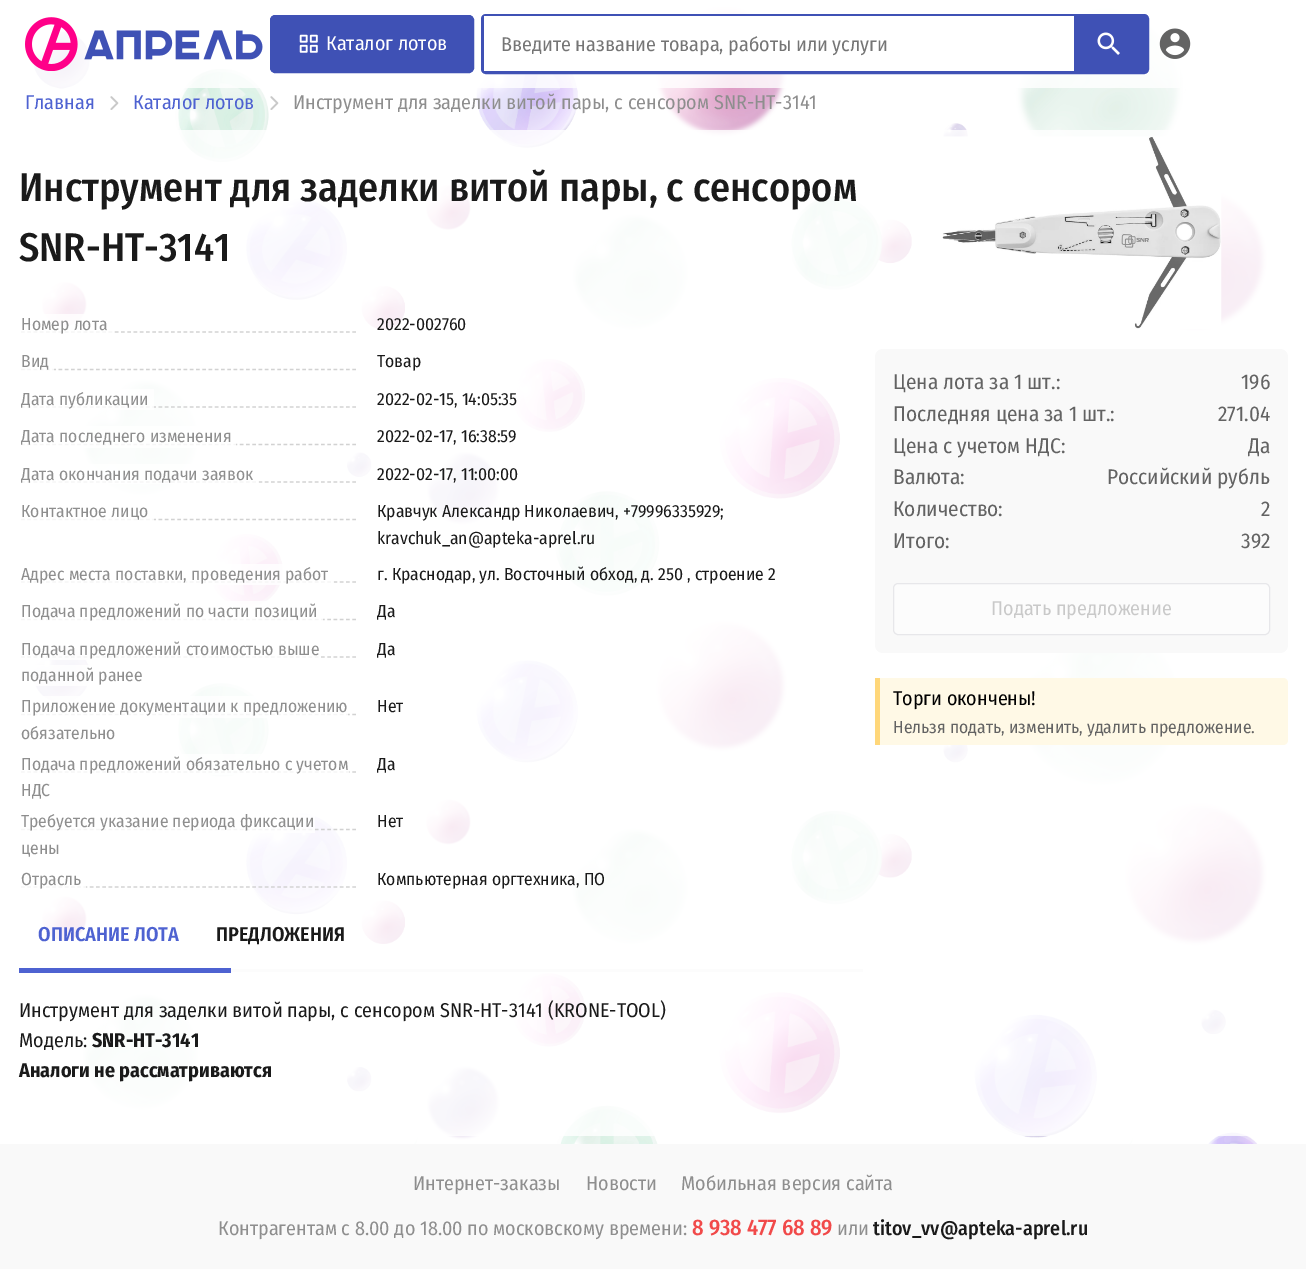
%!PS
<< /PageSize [1306 1269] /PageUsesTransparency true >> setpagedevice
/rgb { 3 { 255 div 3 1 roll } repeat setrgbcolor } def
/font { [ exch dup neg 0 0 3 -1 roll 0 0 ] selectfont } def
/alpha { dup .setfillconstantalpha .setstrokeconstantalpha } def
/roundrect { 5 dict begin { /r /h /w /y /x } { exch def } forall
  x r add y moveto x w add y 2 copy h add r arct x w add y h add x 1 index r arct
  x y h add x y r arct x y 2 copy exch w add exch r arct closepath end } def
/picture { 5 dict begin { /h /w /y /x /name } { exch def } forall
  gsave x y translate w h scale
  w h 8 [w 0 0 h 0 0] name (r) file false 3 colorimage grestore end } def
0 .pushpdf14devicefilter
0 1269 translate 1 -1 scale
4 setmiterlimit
255 255 255 rgb
0 0 1306 1269 rectfill
(img/1.rgb) 33 7 1234 1137 picture
0.8 alpha
33 7 1147 81 rectfill
1 alpha
(img/2.rgb) 25 17 238 54 picture
63 81 181 rgb
270.5 15.5 203 57 4.5 roundrect gsave fill grestore
stroke
(img/3.rgb) 299 34 19 19 picture
3 setlinewidth
482.5 15.5 665 57 3.5 roundrect stroke
255 255 255 rgb
484 16 590 55 rectfill
63 81 181 rgb
1074 17 72 54 rectfill
(img/4.rgb) 1097 32 23 23 picture
(img/5.rgb) 1159 28 32 31 picture
(img/6.rgb) 110 96 9 14 picture
(img/6.rgb) 270 96 9 14 picture
30 30 30 rgb
1.2 setlinewidth
[3.75 2.5] 0 setdash
21 332 moveto 356 332 lineto stroke
21 369.5 moveto 356 369.5 lineto stroke
21 407 moveto 356 407 lineto stroke
21 444.5 moveto 356 444.5 lineto stroke
21 482 moveto 356 482 lineto stroke
21 519.5 moveto 356 519.5 lineto stroke
21 582 moveto 356 582 lineto stroke
21 619.5 moveto 356 619.5 lineto stroke
21 657 moveto 356 657 lineto stroke
21 714.5 moveto 356 714.5 lineto stroke
21 772 moveto 356 772 lineto stroke
21 829.5 moveto 356 829.5 lineto stroke
21 887 moveto 356 887 lineto stroke
0.8 alpha
255 255 255 rgb
0 130 1306 1006 63 roundrect fill
[
  [21 314 92 19 255 255 255]
  [21 368 33 3 255 255 255]
  [21 389 133 21 255 255 255]
  [21 426 215 22 255 255 255]
  [21 464 238 20 255 255 255]
  [21 518 133 3 255 255 255]
  [21 564 313 21 255 255 255]
  [21 601 302 20 255 255 255]
  [21 646 298 14 255 255 255]
  [33 665 57 21 255 255 255]
  [21 696 327 22 255 255 255]
  [21 754 328 21 255 255 255]
  [21 815 294 18 255 255 255]
  [21 886 65 2 255 255 255]
] { aload pop rgb rectfill } forall
1 alpha
[
  [231 969 632 3 252 252 252]
  [19 968 212 5 78 98 209]
] { aload pop rgb rectfill } forall
(img/7.rgb) 942 136 280 193 picture
249 249 249 rgb
875 349 413 304 8 roundrect fill
252 252 252 rgb
893.5 583.5 376 51 4.5 roundrect gsave fill grestore
231 231 234 rgb
1 setlinewidth
[] 0 setdash
stroke
255 249 230 rgb
875 678 moveto 1283 678 lineto 1286 678 1288 680 1288 683 curveto 1288 740 lineto 1288 743 1286 745 1283 745 curveto 875 745 lineto closepath fill
255 215 122 rgb
875 678 5 67 rectfill
249 249 249 rgb
0 1144 1306 125 rectfill
/FiraSansCondensed-Regular 20 font
255 255 255 rgb
326 50 moveto (Каталог лотов) show
117 117 117 rgb
501 51 moveto (Введите название товара, работы или услуги) show
78 98 209 rgb
25 109 moveto (Главная) show
133 109 moveto (Каталог лотов) show
142 142 142 rgb
293 109 moveto (Инструмент для заделки витой пары, с сенсором SNR-HT-3141) show
/FiraSansCondensed-Medium 40 font
26 26 26 rgb
19 201 moveto (Инструмент для заделки витой пары, с сенсором) show
19 261 moveto (SNR-HT-3141) show
/FiraSansCondensed-Regular 17.5 font
142 142 142 rgb
21 330 moveto (Номер лота) show
26 26 26 rgb
377 330 moveto (2022-002760) show
142 142 142 rgb
21 367 moveto (Вид) show
26 26 26 rgb
377 367 moveto (Товар) show
142 142 142 rgb
21 405 moveto (Дата публикации) show
26 26 26 rgb
377 405 moveto (2022-02-15, 14:05:35) show
142 142 142 rgb
21 442 moveto (Дата последнего изменения) show
26 26 26 rgb
377 442 moveto (2022-02-17, 16:38:59) show
142 142 142 rgb
21 480 moveto (Дата окончания подачи заявок) show
26 26 26 rgb
377 480 moveto (2022-02-17, 11:00:00) show
142 142 142 rgb
21 517 moveto (Контактное лицо) show
26 26 26 rgb
377 517 moveto (Кравчук Александр Николаевич, +79996335929;) show
377 544 moveto (kravchuk_an@apteka-aprel.ru) show
142 142 142 rgb
21 580 moveto (Адрес места поставки, проведения работ) show
26 26 26 rgb
377 580 moveto (г. Краснодар, ул. Восточный обход, д. 250 , строение 2) show
142 142 142 rgb
21 617 moveto (Подача предложений по части позиций) show
26 26 26 rgb
377 617 moveto (Да) show
142 142 142 rgb
21 655 moveto (Подача предложений стоимостью выше) show
21 681 moveto (поданной ранее) show
26 26 26 rgb
377 655 moveto (Да) show
142 142 142 rgb
21 712 moveto (Приложение документации к предложению) show
21 739 moveto (обязательно) show
26 26 26 rgb
377 712 moveto (Нет) show
142 142 142 rgb
21 770 moveto (Подача предложений обязательно с учетом) show
21 796 moveto (НДС) show
26 26 26 rgb
377 770 moveto (Да) show
142 142 142 rgb
21 827 moveto (Требуется указание периода фиксации) show
21 854 moveto (цены) show
26 26 26 rgb
377 827 moveto (Нет) show
142 142 142 rgb
21 885 moveto (Отрасль) show
26 26 26 rgb
377 885 moveto (Компьютерная оргтехника, ПО) show
/FiraSansCondensed-SemiBold 20 font
78 98 209 rgb
38 941 moveto (ОПИСАНИЕ ЛОТА) show
26 26 26 rgb
216 941 moveto (ПРЕДЛОЖЕНИЯ) show
/FiraSansCondensed-Regular 20 font
19 1017 moveto (Инструмент для заделки витой пары, с сенсором SNR-HT-3141 \(KRONE-TOOL\)) show
19 1047 moveto (Модель:) show
/FiraSansCondensed-Bold 20 font
92 1047 moveto (SNR-HT-3141) show
19 1077 moveto (Аналоги не рассматриваются) show
/FiraSansCondensed-Regular 21.25 font
99 99 99 rgb
[
  [(Цена лота за 1 шт.:) 893 389]
  [(196) 1241 389]
  [(Последняя цена за 1 шт.:) 893 421]
  [(271.04) 1218 421]
  [(Цена с учетом НДС:) 893 453]
  [(Да) 1248 453]
  [(Валюта:) 893 484]
  [(Российский рубль) 1107 484]
  [(Количество:) 893 516]
  [(2) 1261 516]
  [(Итого:) 893 548]
  [(392) 1241 548]
] { aload pop moveto show } forall
/FiraSansCondensed-Regular 20 font
201 201 201 rgb
991 615 moveto (Подать предложение) show
0 0 0 rgb
893 705 moveto (Торги окончены!) show
/FiraSansCondensed-Regular 17.5 font
99 99 99 rgb
893 733 moveto (Нельзя подать, изменить, удалить предложение.) show
/FiraSansCondensed-Regular 20 font
142 142 142 rgb
[
  [(Интернет-заказы) 413 1190]
  [(Новости) 586 1190]
  [(Мобильная версия сайта) 681 1190]
  [(Контрагентам с 8.00 до 18.00 по московскому времени:) 218 1235]
] { aload pop moveto show } forall
/FiraSansCondensed-Medium 22.5 font
241 74 74 rgb
692 1235 moveto (8 938 477 68 89) show
/FiraSansCondensed-Regular 20 font
142 142 142 rgb
837 1235 moveto (или) show
/FiraSansCondensed-Medium 20 font
26 26 26 rgb
873 1235 moveto (titov_vv@apteka-aprel.ru) show
.poppdf14devicefilter showpage
